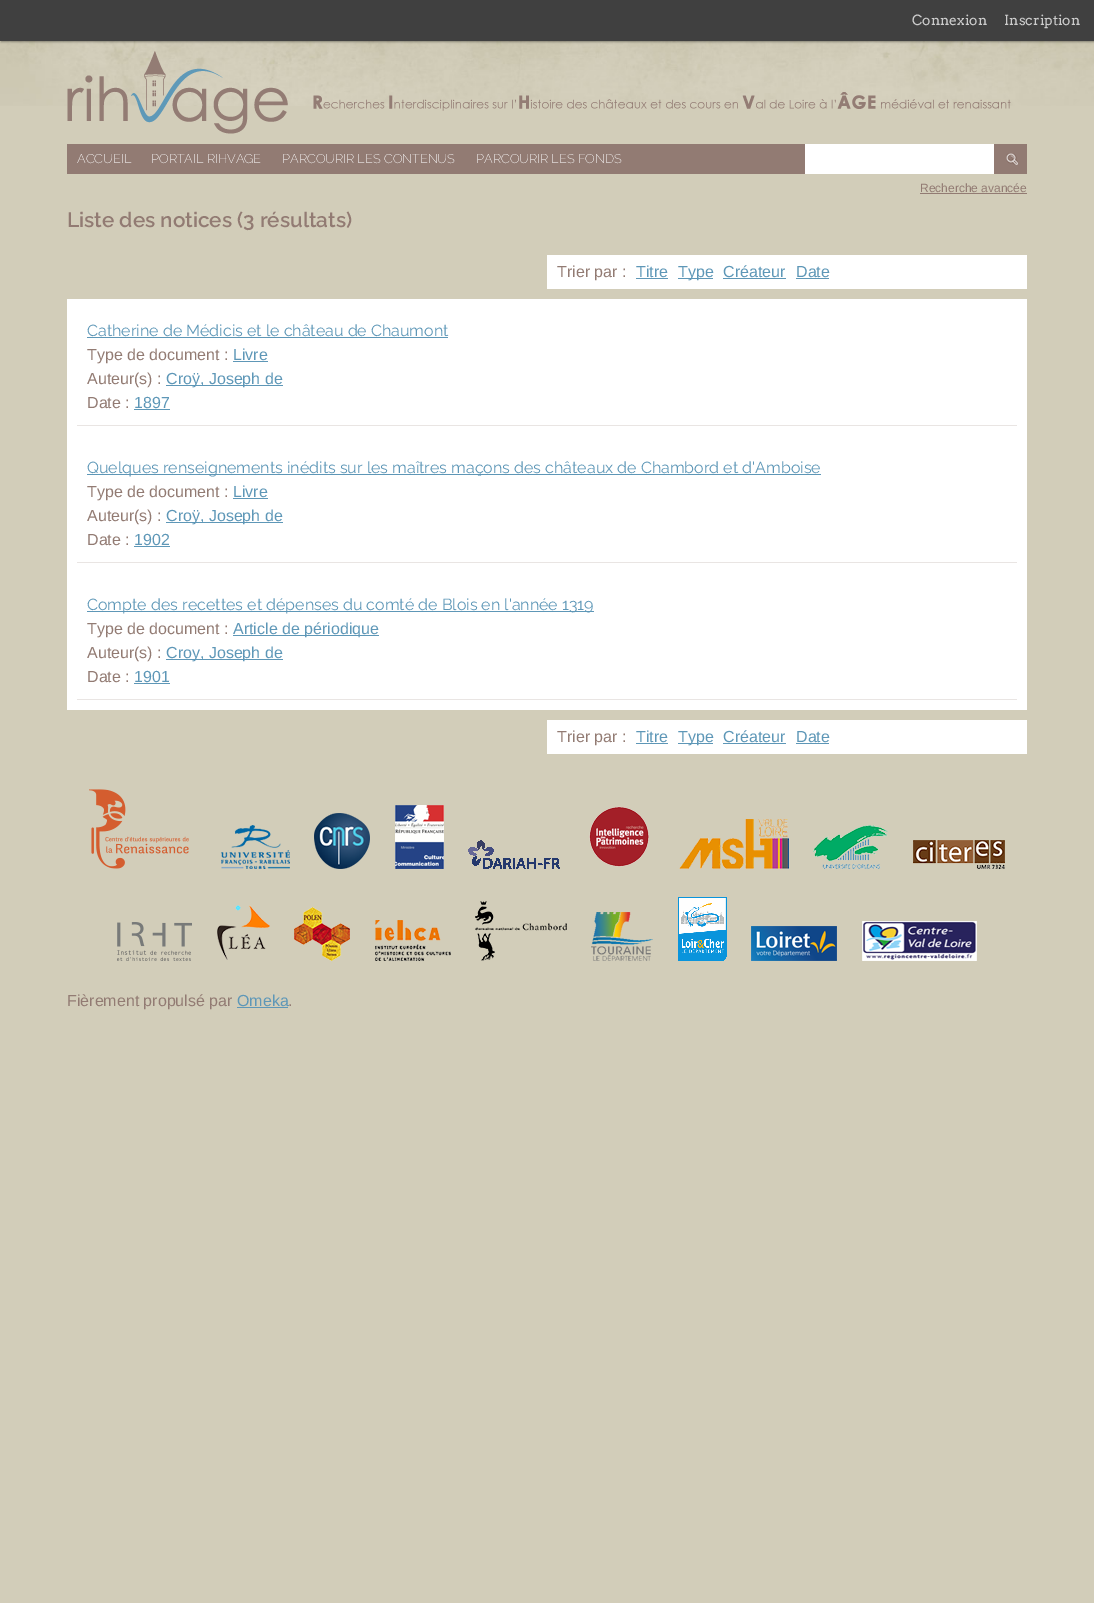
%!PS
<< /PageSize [1094 1603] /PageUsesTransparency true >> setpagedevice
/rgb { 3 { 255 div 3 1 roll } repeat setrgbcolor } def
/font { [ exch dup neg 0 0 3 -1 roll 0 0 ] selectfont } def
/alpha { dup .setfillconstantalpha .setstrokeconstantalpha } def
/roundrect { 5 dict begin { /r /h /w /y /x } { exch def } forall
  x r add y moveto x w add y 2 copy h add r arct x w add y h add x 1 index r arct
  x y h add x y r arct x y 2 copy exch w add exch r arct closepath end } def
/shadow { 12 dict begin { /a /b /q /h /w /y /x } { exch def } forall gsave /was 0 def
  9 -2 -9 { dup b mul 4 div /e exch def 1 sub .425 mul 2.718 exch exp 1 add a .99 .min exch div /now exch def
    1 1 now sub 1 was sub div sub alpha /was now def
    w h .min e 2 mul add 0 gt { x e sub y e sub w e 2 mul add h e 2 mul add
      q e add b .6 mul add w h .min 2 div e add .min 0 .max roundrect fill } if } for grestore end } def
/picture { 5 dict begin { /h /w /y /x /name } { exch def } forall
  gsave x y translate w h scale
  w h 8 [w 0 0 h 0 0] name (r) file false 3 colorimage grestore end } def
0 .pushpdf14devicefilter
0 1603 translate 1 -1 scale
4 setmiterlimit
210 205 185 rgb
0 0 1094 1603 rectfill
(img/1.rgb) 0 41 1094 65 picture
0 0 0 rgb
1 1 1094 41 0 1 0.35 shadow
64 64 64 rgb
0 0 1094 41 rectfill
(img/2.rgb) 67 51 944 83 picture
146 123 115 rgb
67 144 960 30 rectfill
255 255 255 rgb
805 144 189 30 rectfill
(img/3.rgb) 1006 153 12 12 picture
[
  [920 193 107 1 146 123 115]
  [547 255 480 34 255 255 255]
  [636 278 32 1 94 151 183]
  [678 278 35 1 94 151 183]
  [723 278 63 1 94 151 183]
  [796 278 33 1 94 151 183]
  [67 299 960 411 255 255 255]
  [77 425 940 1 233 229 227]
  [87 337 361 1 94 151 183]
  [233 361 35 1 94 151 183]
  [166 385 117 1 94 151 183]
  [134 409 36 1 94 151 183]
  [77 562 940 1 233 229 227]
  [87 474 734 1 94 151 183]
  [233 498 35 1 94 151 183]
  [166 522 117 1 94 151 183]
  [134 546 36 1 94 151 183]
  [77 699 940 1 233 229 227]
  [87 611 507 1 94 151 183]
  [233 635 146 1 94 151 183]
  [166 659 117 1 94 151 183]
  [134 683 36 1 94 151 183]
  [547 720 480 34 255 255 255]
  [636 743 32 1 94 151 183]
  [678 743 35 1 94 151 183]
  [723 743 63 1 94 151 183]
  [796 743 33 1 94 151 183]
] { aload pop rgb rectfill } forall
(img/4.rgb) 89 789 100 80 picture
(img/5.rgb) 221 825 69 44 picture
(img/6.rgb) 314 813 56 56 picture
(img/7.rgb) 395 805 49 64 picture
(img/8.rgb) 468 840 92 29 picture
(img/9.rgb) 589 806 60 61 picture
(img/10.rgb) 679 819 110 50 picture
(img/11.rgb) 813 825 75 44 picture
(img/12.rgb) 913 840 92 29 picture
(img/13.rgb) 117 922 75 39 picture
(img/14.rgb) 217 905 53 55 picture
(img/15.rgb) 294 907 56 54 picture
(img/16.rgb) 375 920 76 41 picture
(img/17.rgb) 475 901 92 60 picture
(img/18.rgb) 591 912 62 49 picture
(img/19.rgb) 678 897 49 64 picture
(img/20.rgb) 751 926 86 35 picture
(img/21.rgb) 862 921 115 40 picture
237 1007 51 1 rectfill
/Arvo-Regular 14 font
204 204 204 rgb
912 25 moveto (Connexion) show
1004 25 moveto (Inscription) show
/Raleway-ExtraLight 12.75 font
255 255 255 rgb
[
  [(ACCUEIL) 77 163]
  [(PORTAIL RIHVAGE) 151 163]
  [(PARCOURIR LES CONTENUS) 282 163]
  [(PARCOURIR LES FONDS) 476 163]
] { aload pop moveto show } forall
/LiberationSans-Regular 12 font
146 123 115 rgb
920 192 moveto (Recherche avancée) show
/Raleway-SemiBold 20.75 font
67 227 moveto (Liste des notices \(3 résultats\)) show
/LiberationSans-Regular 16 font
557 277 moveto (Trier par :) show
94 151 183 rgb
[
  [(Titre) 636 277]
  [(Type) 678 277]
  [(Créateur) 723 277]
  [(Date) 796 277]
] { aload pop moveto show } forall
/Raleway-Regular 16 font
87 336 moveto (Catherine de Médicis et le château de Chaumont) show
/LiberationSans-Regular 16 font
146 123 115 rgb
87 360 moveto (Type de document :) show
94 151 183 rgb
233 360 moveto (Livre) show
146 123 115 rgb
87 384 moveto (Auteur\(s\) :) show
94 151 183 rgb
166 384 moveto (Croÿ, Joseph de) show
146 123 115 rgb
87 408 moveto (Date :) show
94 151 183 rgb
134 408 moveto (1897) show
/Raleway-Regular 16 font
87 473 moveto (Quelques renseignements inédits sur les maîtres maçons des châteaux de Chambord et d'Amboise) show
/LiberationSans-Regular 16 font
146 123 115 rgb
87 497 moveto (Type de document :) show
94 151 183 rgb
233 497 moveto (Livre) show
146 123 115 rgb
87 521 moveto (Auteur\(s\) :) show
94 151 183 rgb
166 521 moveto (Croÿ, Joseph de) show
146 123 115 rgb
87 545 moveto (Date :) show
94 151 183 rgb
134 545 moveto (1902) show
/Raleway-Regular 16 font
87 610 moveto (Compte des recettes et dépenses du comté de Blois en l'année 1319) show
/LiberationSans-Regular 16 font
146 123 115 rgb
87 634 moveto (Type de document :) show
94 151 183 rgb
233 634 moveto (Article de périodique) show
146 123 115 rgb
87 658 moveto (Auteur\(s\) :) show
94 151 183 rgb
166 658 moveto (Croy, Joseph de) show
146 123 115 rgb
87 682 moveto (Date :) show
94 151 183 rgb
134 682 moveto (1901) show
146 123 115 rgb
557 742 moveto (Trier par :) show
94 151 183 rgb
[
  [(Titre) 636 742]
  [(Type) 678 742]
  [(Créateur) 723 742]
  [(Date) 796 742]
] { aload pop moveto show } forall
146 123 115 rgb
67 1006 moveto (Fièrement propulsé par) show
94 151 183 rgb
237 1006 moveto (Omeka) show
146 123 115 rgb
288 1006 moveto (.) show
.poppdf14devicefilter showpage
